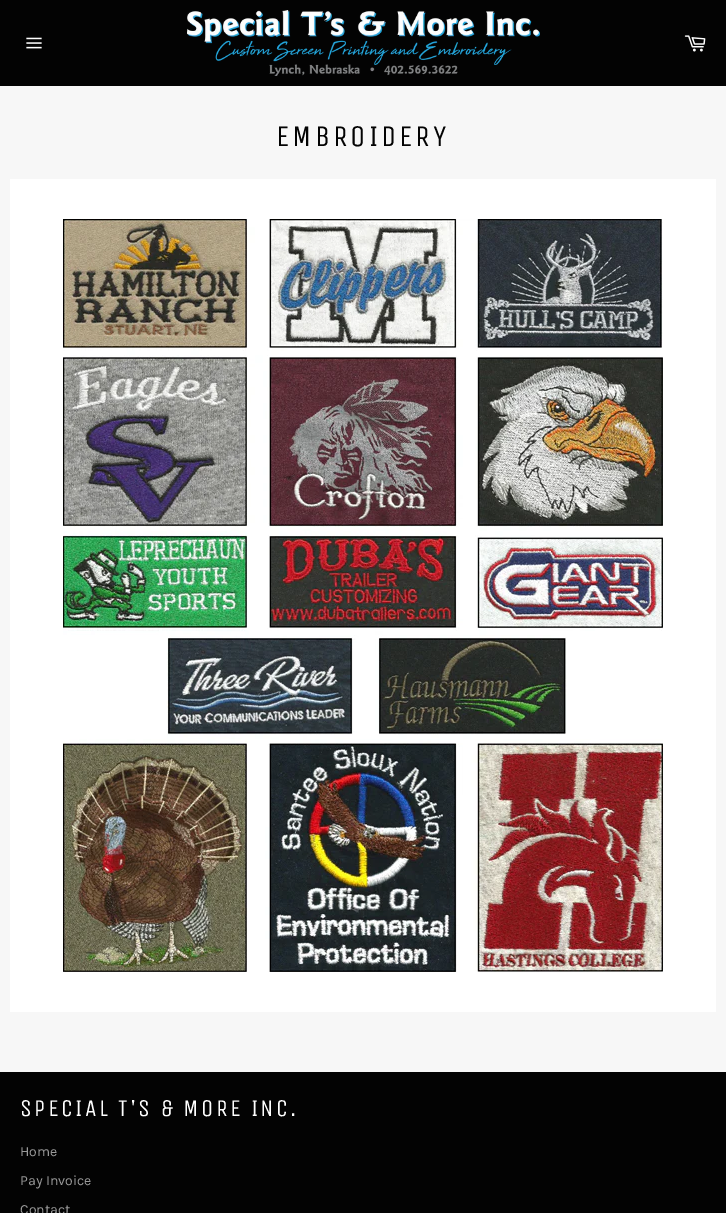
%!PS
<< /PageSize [726 1213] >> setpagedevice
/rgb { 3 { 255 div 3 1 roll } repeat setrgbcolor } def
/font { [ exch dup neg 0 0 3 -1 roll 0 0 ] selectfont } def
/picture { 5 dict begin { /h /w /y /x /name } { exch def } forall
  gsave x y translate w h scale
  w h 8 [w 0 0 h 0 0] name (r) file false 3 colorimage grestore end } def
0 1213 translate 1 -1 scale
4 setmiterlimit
247 247 247 rgb
0 0 726 1213 rectfill
3 3 3 rgb
0 0 726 86 rectfill
(img/1.rgb) 26 37 16 12 picture
(img/2.rgb) 187 10 353 66 picture
(img/3.rgb) 684 35 22 17 picture
255 255 255 rgb
10 179 706 833 rectfill
(img/4.rgb) 63 219 600 753 picture
3 3 3 rgb
0 1072 726 141 rectfill
/UnicaOne-Regular 30 font
276 146 moveto 3 0 (EMBROIDERY) ashow
/UnicaOne-Regular 24 font
255 255 255 rgb
20 1116 moveto 2.4 0 (SPECIAL T'S & MORE INC.) ashow
/Karla-Regular 14 font
154 154 154 rgb
[
  [(Home) 20 1156]
  [(Pay Invoice) 20 1185]
  [(Contact) 20 1214]
] { aload pop moveto show } forall
showpage
